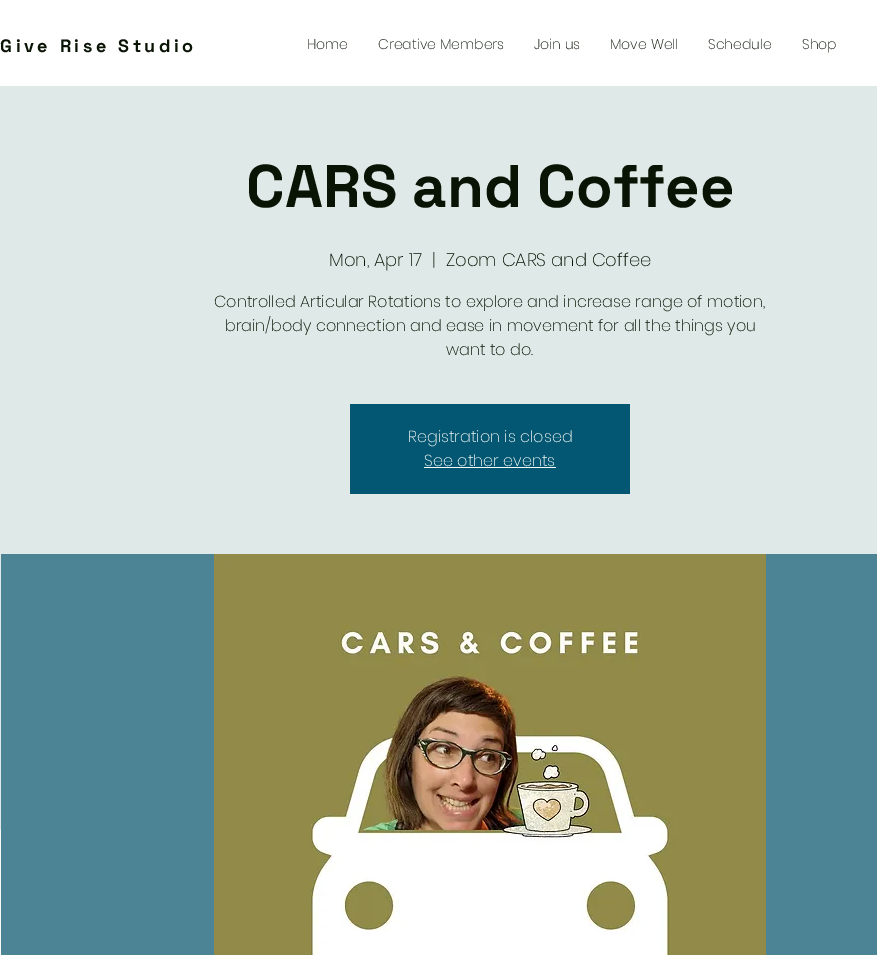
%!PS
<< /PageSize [877 955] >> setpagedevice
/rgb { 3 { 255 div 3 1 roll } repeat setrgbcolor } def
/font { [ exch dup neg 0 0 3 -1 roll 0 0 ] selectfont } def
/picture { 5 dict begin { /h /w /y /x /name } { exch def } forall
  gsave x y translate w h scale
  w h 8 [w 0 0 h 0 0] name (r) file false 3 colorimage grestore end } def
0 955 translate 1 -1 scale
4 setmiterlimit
255 255 255 rgb
0 0 877 955 rectfill
[
  [0 86 877 744 222 233 232]
  [350 404 280 90 3 87 114]
  [424 467 132 1 246 249 245]
  [1 554 876 401 77 132 149]
] { aload pop rgb rectfill } forall
(img/1.rgb) 214 554 552 401 picture
246 249 245 rgb
0 830 1 125 rectfill
/SpaceGrotesk-Bold 18 font
9 20 5 rgb
0 52 moveto 3.6 0 (Give Rise Studio) ashow
/Poppins-ExtraLight 14 font
[
  [(Home) 307 49]
  [(Creative Members) 378 49]
  [(Join us) 534 49]
  [(Move Well) 610 49]
  [(Schedule) 708 49]
  [(Shop) 802 49]
] { aload pop moveto show } forall
/SpaceGrotesk-Bold 60 font
246 207 moveto (CARS and Coffee) show
/Poppins-ExtraLight 18 font
[
  [(Mon, Apr 17) 329 266]
  [(|) 432 266]
  [(Zoom CARS and Coffee) 446 266]
] { aload pop moveto show } forall
/Poppins-ExtraLight 16 font
[
  [(Controlled Articular Rotations to explore and increase range of motion,) 214 307]
  [(brain/body connection and ease in movement for all the things you) 225 331]
  [(want to do.) 446 355]
] { aload pop moveto show } forall
246 249 245 rgb
408 442 moveto (Registration is closed) show
424 466 moveto (See other events) show
showpage
